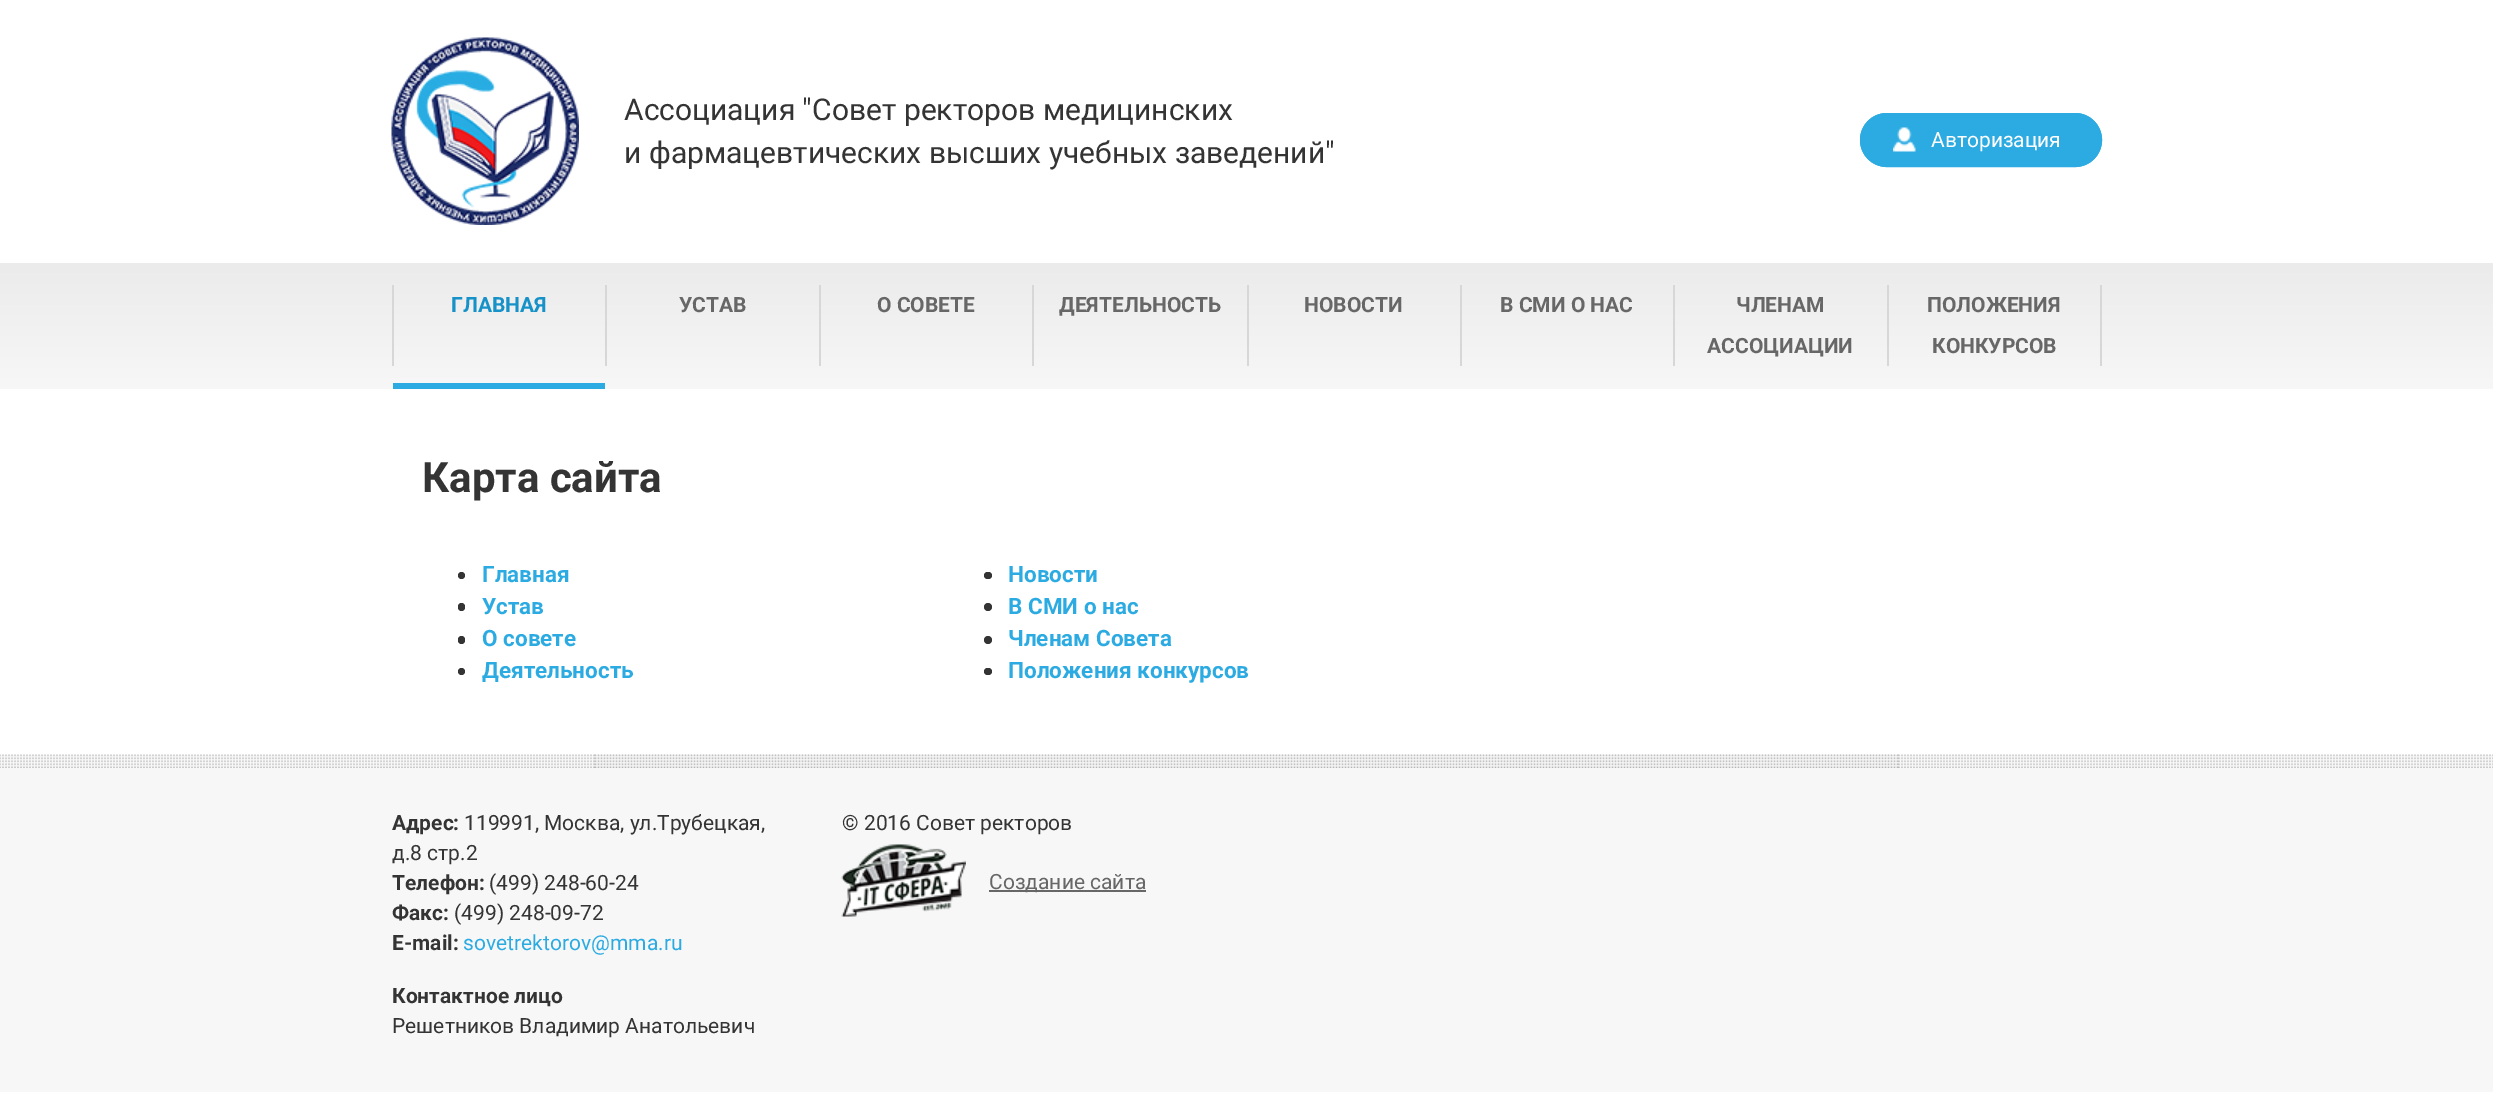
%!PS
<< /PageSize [2493 1096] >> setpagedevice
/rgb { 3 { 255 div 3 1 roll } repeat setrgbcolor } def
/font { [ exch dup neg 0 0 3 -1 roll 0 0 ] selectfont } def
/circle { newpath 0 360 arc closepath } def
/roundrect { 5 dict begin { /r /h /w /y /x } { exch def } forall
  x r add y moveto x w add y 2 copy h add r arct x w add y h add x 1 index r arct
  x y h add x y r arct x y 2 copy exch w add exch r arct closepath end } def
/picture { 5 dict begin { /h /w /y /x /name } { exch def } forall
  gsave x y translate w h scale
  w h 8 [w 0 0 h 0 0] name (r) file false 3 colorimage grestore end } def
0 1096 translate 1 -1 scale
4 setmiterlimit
255 255 255 rgb
0 0 2493 1096 rectfill
(img/1.rgb) 391 37 188 188 picture
44 171 226 rgb
1860 113 242 54 27 roundrect fill
(img/2.rgb) 1893 127 23 25 picture
3 setlinewidth
1861.5 114.5 239 51 25.5 roundrect stroke
gsave 0 263 moveto 2493 263 lineto 2493 389 lineto 0 389 lineto closepath clip newpath
<< /ShadingType 2 /ColorSpace /DeviceRGB /Coords [1247 262 1247 389] /Extend [true true] /Function << /FunctionType 2 /Domain [0 1] /C0 [0.922 0.922 0.922] /C1 [0.969 0.969 0.969] /N 1 >> >> shfill grestore
[
  [392 285 2 81 215 215 215]
  [393 383 212 6 44 171 226]
  [605 285 2 81 215 215 215]
  [819 285 2 81 215 215 215]
  [1032 285 2 81 215 215 215]
  [1247 285 2 81 215 215 215]
  [1460 285 2 81 215 215 215]
  [1673 285 2 81 215 215 215]
  [2100 285 2 81 215 215 215]
  [1887 285 2 81 215 215 215]
] { aload pop rgb rectfill } forall
52 52 52 rgb
461.5 575.5 3.5 circle fill
458 603 7 8 3.5 roundrect fill
458 636 7 8 3.5 roundrect fill
461.5 671.5 3.5 circle fill
984 572 8 7 3.5 roundrect fill
988 607 4 circle fill
988 640 4 circle fill
984 668 8 7 3.5 roundrect fill
247 247 247 rgb
0 755 2493 337 rectfill
(img/3.rgb) 0 754 2493 14 picture
(img/4.rgb) 841 844 125 73 picture
103 103 103 rgb
989 890 157 2 rectfill
/Roboto-Regular 30 font
52 52 52 rgb
624 120 moveto (Ассоциация "Совет ректоров медицинских) show
624 163 moveto (и фармацевтических высших учебных заведений") show
/Roboto-Regular 21 font
255 255 255 rgb
1931 147 moveto (Авторизация) show
/Roboto-Bold 21 font
22 146 200 rgb
451 312 moveto (ГЛАВНАЯ) show
103 103 103 rgb
[
  [(УСТАВ) 679 312]
  [(О СОВЕТЕ) 877 312]
  [(ДЕЯТЕЛЬНОСТЬ) 1059 312]
  [(НОВОСТИ) 1304 312]
  [(В СМИ О НАС) 1500 312]
  [(ЧЛЕНАМ) 1736 312]
  [(АССОЦИАЦИИ) 1707 353]
  [(ПОЛОЖЕНИЯ) 1927 312]
  [(КОНКУРСОВ) 1932 353]
] { aload pop moveto show } forall
/Roboto-Bold 42 font
52 52 52 rgb
422 492 moveto (Карта сайта) show
/Roboto-Bold 22.5 font
44 171 226 rgb
[
  [(Главная) 482 582]
  [(Устав) 482 614]
  [(О совете) 482 646]
  [(Деятельность) 482 678]
  [(Новости) 1008 582]
  [(В СМИ о нас) 1008 614]
  [(Членам Совета) 1008 646]
  [(Положения конкурсов) 1008 678]
] { aload pop moveto show } forall
/Roboto-Bold 21 font
52 52 52 rgb
392 830 moveto (Адрес:) show
/Roboto-Regular 21 font
464 830 moveto (119991, Москва, ул.Трубецкая,) show
392 860 moveto (д.8 стр.2) show
/Roboto-Bold 21 font
392 890 moveto (Телефон:) show
/Roboto-Regular 21 font
489 890 moveto (\(499\) 248-60-24) show
/Roboto-Bold 21 font
392 920 moveto (Факс:) show
/Roboto-Regular 21 font
454 920 moveto (\(499\) 248-09-72) show
/Roboto-Bold 21 font
392 950 moveto (E-mail:) show
/Roboto-Regular 21 font
44 171 226 rgb
463 950 moveto (sovetrektorov@mma.ru) show
/Roboto-Bold 21 font
52 52 52 rgb
392 1003 moveto (Контактное лицо) show
/Roboto-Regular 21 font
392 1033 moveto (Решетников Владимир Анатольевич) show
842 830 moveto (© 2016 Совет ректоров) show
103 103 103 rgb
989 889 moveto (Создание сайта) show
showpage
